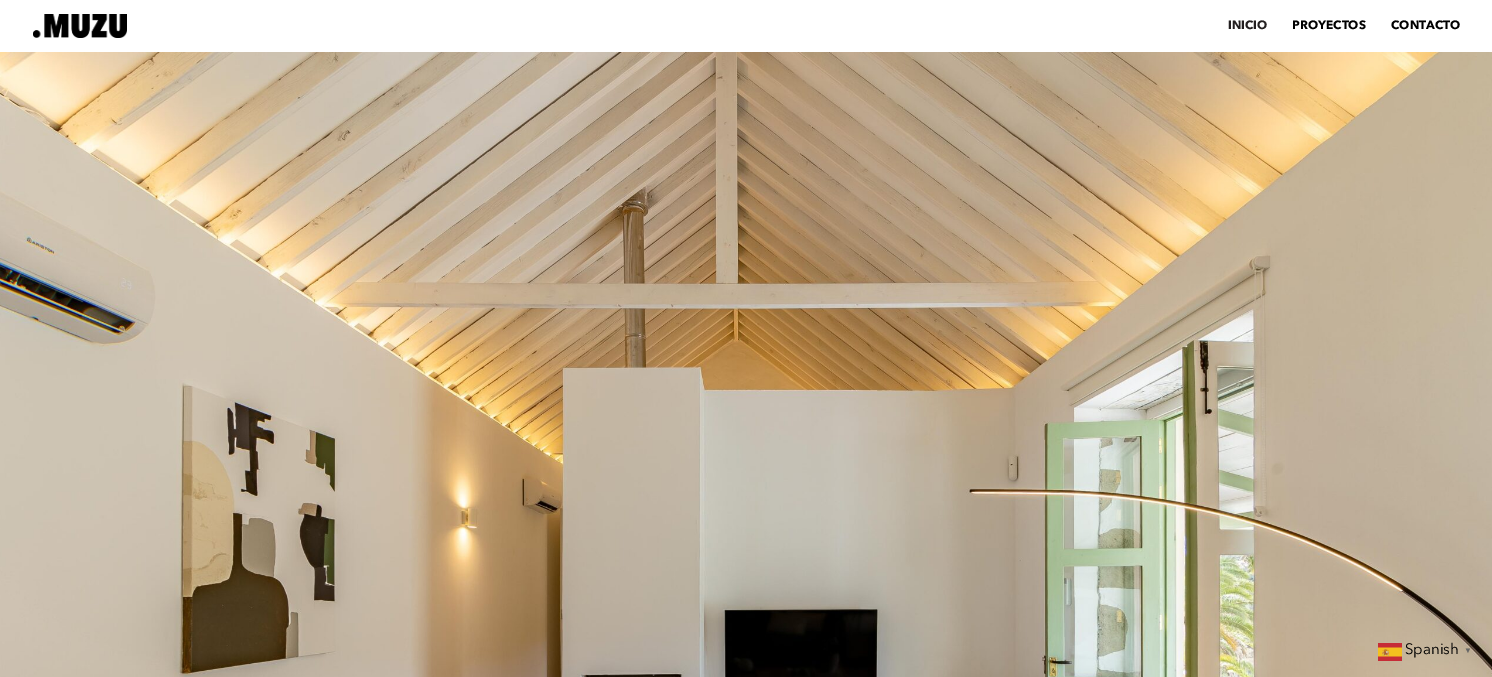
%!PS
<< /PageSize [1492 677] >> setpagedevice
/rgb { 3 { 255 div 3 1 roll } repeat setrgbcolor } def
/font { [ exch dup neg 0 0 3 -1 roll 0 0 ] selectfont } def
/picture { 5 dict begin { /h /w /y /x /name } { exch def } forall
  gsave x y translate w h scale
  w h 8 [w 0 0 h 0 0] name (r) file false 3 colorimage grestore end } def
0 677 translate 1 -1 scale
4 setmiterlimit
255 255 255 rgb
0 0 1492 677 rectfill
(img/1.rgb) 33 14 94 24 picture
(img/2.rgb) 0 52 1492 625 picture
(img/3.rgb) 1378 643 24 18 picture
/AvenirNext-Bold 12 font
35 31 32 rgb
1228 29 moveto (INICIO) show
0 0 0 rgb
1292 29 moveto (PROYECTOS) show
1391 29 moveto (CONTACTO) show
/AvenirNext-Regular 15 font
1405 654 moveto (Spanish) show
/LiberationSans-Bold 8 font
102 102 102 rgb
1464 653 moveto (▼) show
showpage
